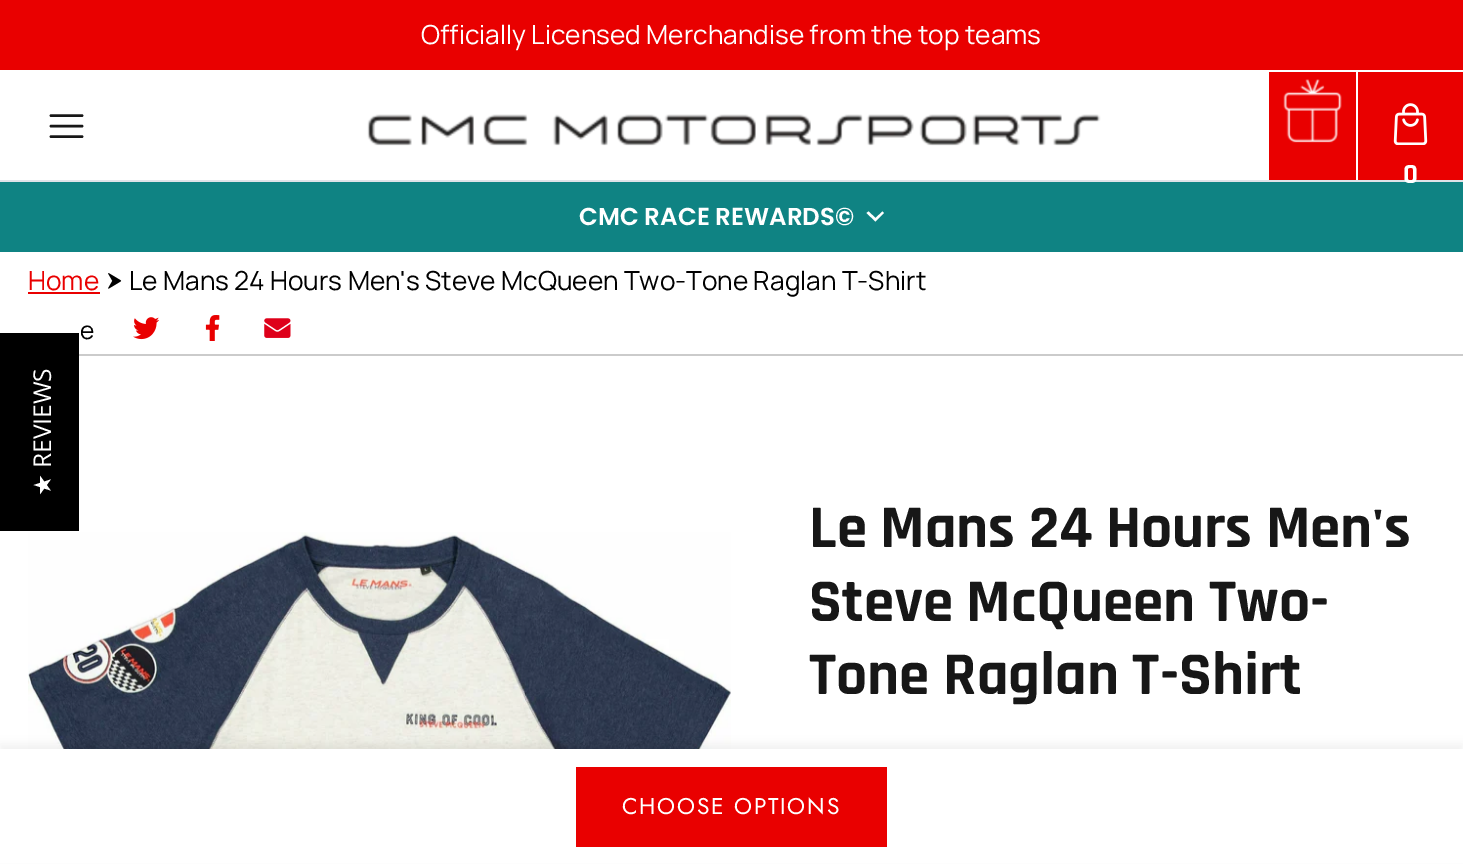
%!PS
<< /PageSize [1463 864] /PageUsesTransparency true >> setpagedevice
/rgb { 3 { 255 div 3 1 roll } repeat setrgbcolor } def
/font { [ exch dup neg 0 0 3 -1 roll 0 0 ] selectfont } def
/alpha { dup .setfillconstantalpha .setstrokeconstantalpha } def
/roundrect { 5 dict begin { /r /h /w /y /x } { exch def } forall
  x r add y moveto x w add y 2 copy h add r arct x w add y h add x 1 index r arct
  x y h add x y r arct x y 2 copy exch w add exch r arct closepath end } def
/shadow { 12 dict begin { /a /b /q /h /w /y /x } { exch def } forall gsave /was 0 def
  9 -2 -9 { dup b mul 4 div /e exch def 1 sub .425 mul 2.718 exch exp 1 add a .99 .min exch div /now exch def
    1 1 now sub 1 was sub div sub alpha /was now def
    w h .min e 2 mul add 0 gt { x e sub y e sub w e 2 mul add h e 2 mul add
      q e add b .6 mul add w h .min 2 div e add .min 0 .max roundrect fill } if } for grestore end } def
/picture { 5 dict begin { /h /w /y /x /name } { exch def } forall
  gsave x y translate w h scale
  w h 8 [w 0 0 h 0 0] name (r) file false 3 colorimage grestore end } def
0 .pushpdf14devicefilter
0 864 translate 1 -1 scale
4 setmiterlimit
255 255 255 rgb
0 0 1463 864 rectfill
233 0 0 rgb
0 0 1463 70 rectfill
223 227 232 rgb
0 180 1463 2 rectfill
23 23 23 rgb
2.6 setlinewidth
1 setlinecap
1 setlinejoin
51 126 moveto 82 126 lineto 51 115.5 moveto 82 115.5 lineto 51 136.5 moveto 82 136.5 lineto stroke
(img/1.rgb) 367 114 734 32 picture
233 0 0 rgb
1269 72 87 108 rectfill
(img/2.rgb) 1283 79 59 64 picture
1358 72 105 108 rectfill
(img/3.rgb) 1393 103 35 42 picture
15 131 131 rgb
0 182 1463 70 rectfill
255 255 255 rgb
875.5 218 moveto 882.5 211.5 lineto 884 213 lineto 875.5 221.5 lineto 866.5 213 lineto 868.5 211.5 lineto closepath fill
233 0 0 rgb
28 292 72 2 rectfill
(img/4.rgb) 108 273 14 16 picture
(img/5.rgb) 133 317 26 23 picture
(img/6.rgb) 205 315 15 26 picture
(img/7.rgb) 264 318 27 20 picture
203 203 203 rgb
79 354 1384 2 rectfill
(img/8.rgb) 28 532 703 217 picture
0 0 0 rgb
0 744 1463 115 0 5 0.05 shadow
[
  [0 749 1463 114 255 255 255]
  [576 767 311 80 233 0 0]
  [0 333 79 198 0 0 0]
] { aload pop rgb rectfill } forall
/Manrope-Regular 26.25 font
255 255 255 rgb
421 44 moveto (Officially Licensed Merchandise from the top teams) show
/Rajdhani-Bold 28 font
1403 183 moveto 1 0 (0) ashow
/Poppins-SemiBold 24.5 font
579 225 moveto (CMC RACE REWARDS©) show
/Manrope-Regular 26.25 font
233 0 0 rgb
28 290 moveto (Home) show
0 0 0 rgb
129 290 moveto (Le Mans 24 Hours Men's Steve McQueen Two-Tone Raglan T-Shirt) show
/Manrope-Regular 24.5 font
80 339 moveto (e) show
/Rajdhani-Bold 61.25 font
23 23 23 rgb
[
  [(Le Mans 24 Hours Men's) 809 547]
  [(Steve McQueen Two-) 809 621]
  [(Tone Raglan T-Shirt) 809 694]
] { aload pop moveto show } forall
/Jost-Regular 22.75 font
255 255 255 rgb
622 814 moveto 1.75 0 (CHOOSE OPTIONS) ashow
/OpenSans-Regular 24.5 font
gsave 51 468 translate -90 rotate 0 0 moveto (REVIEWS) show grestore
/DejaVuSans-Regular 24.5 font
gsave 51 496 translate -90 rotate 0 0 moveto (★) show grestore
.poppdf14devicefilter showpage
